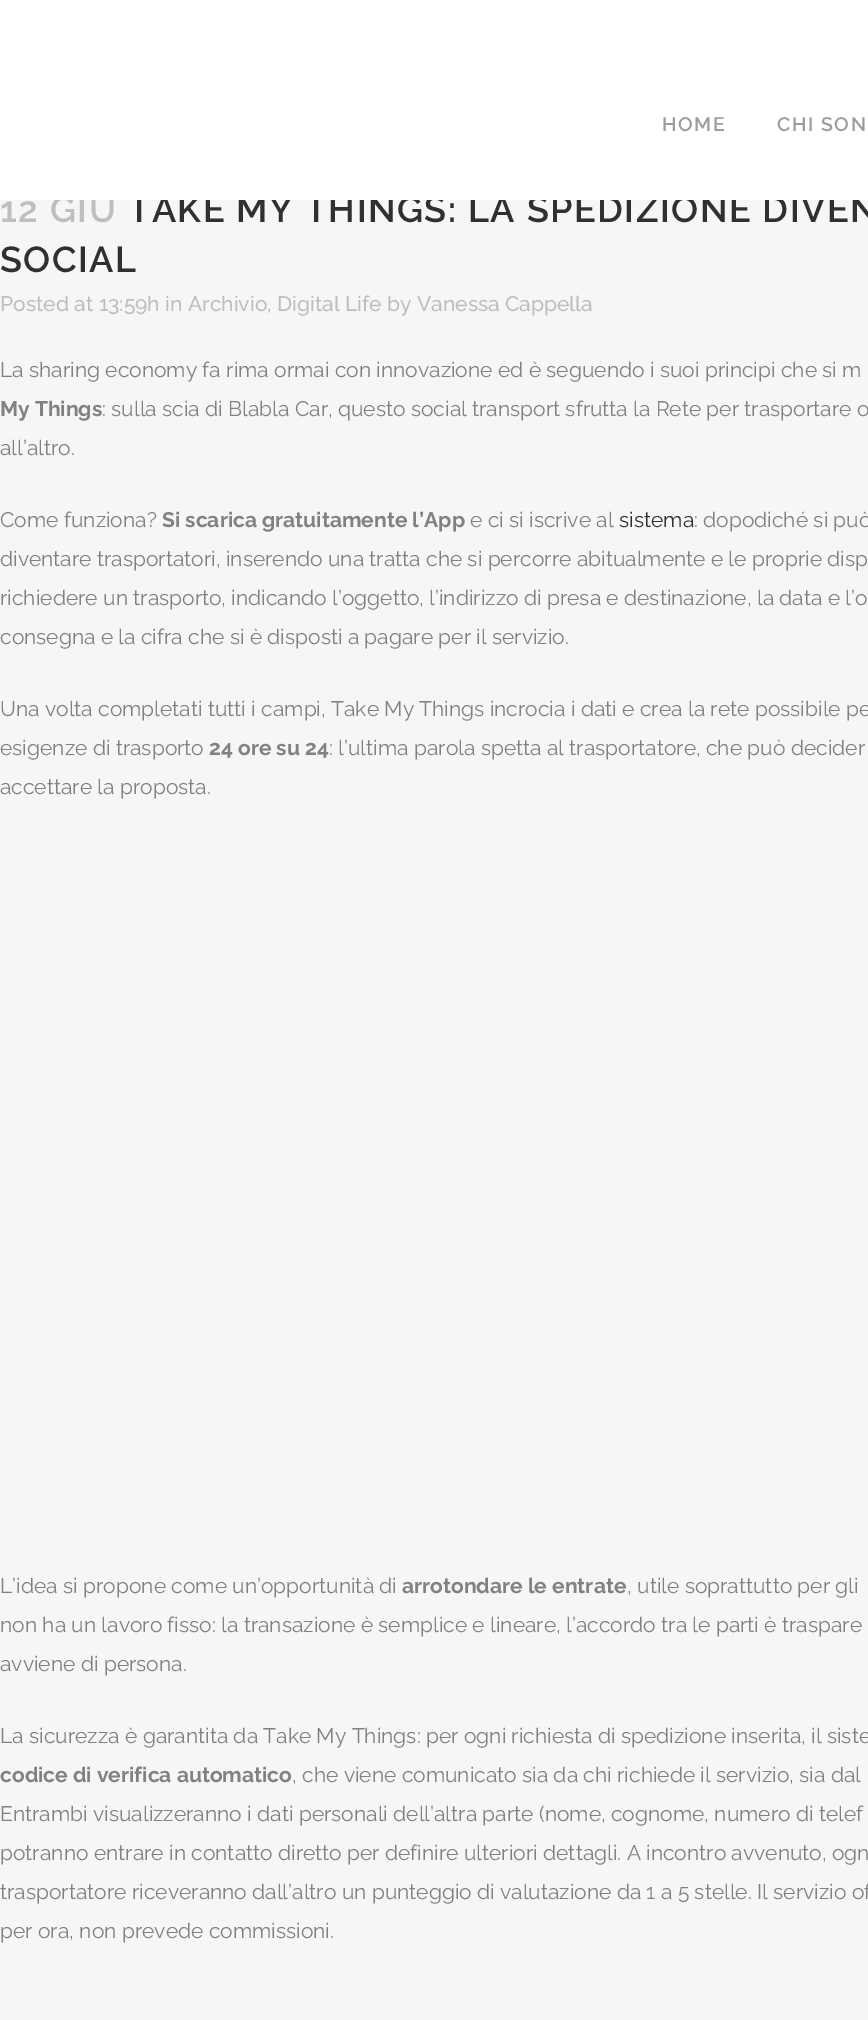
%!PS
<< /PageSize [868 2020] >> setpagedevice
/rgb { 3 { 255 div 3 1 roll } repeat setrgbcolor } def
/font { [ exch dup neg 0 0 3 -1 roll 0 0 ] selectfont } def
0 2020 translate 1 -1 scale
4 setmiterlimit
246 246 246 rgb
0 0 868 2020 rectfill
/Raleway-SemiBold 36 font
190 190 190 rgb
0 222 moveto 1.5 0 (12 GIU) ashow
48 48 48 rgb
128 222 moveto 1.5 0 (TAKE MY THINGS: LA SPEDIZIONE DIVEN) ashow
255 255 255 rgb
0 0 868 200 rectfill
/Raleway-SemiBold 19.5 font
157 157 157 rgb
777 131 moveto 1.5 0 (CHI SON) ashow
662 131 moveto 1.5 0 (HOME) ashow
/Raleway-SemiBold 36 font
48 48 48 rgb
0 272 moveto 1.5 0 (SOCIAL) ashow
/Raleway-Medium 21 font
190 190 190 rgb
0 311 moveto (Posted at 13:59h in Archivio, Digital Life by Vanessa Cappella) show
/Raleway-Regular 21 font
129 129 129 rgb
0 377 moveto (La sharing economy fa rima ormai con innovazione ed è seguendo i suoi principi che si m) show
/Raleway-Bold 21 font
0 416 moveto (My Things) show
/Raleway-Regular 21 font
[
  [(: sulla scia di Blabla Car, questo social transport sfrutta la Rete per trasportare o) 102 416]
  [(all’altro.) 0 455]
  [(Come funziona?) 0 527]
] { aload pop moveto show } forall
/Raleway-Bold 21 font
162 527 moveto (Si scarica gratuitamente l’App) show
/Raleway-Regular 21 font
470 527 moveto (e ci si iscrive al) show
48 48 48 rgb
619 527 moveto (sistema) show
129 129 129 rgb
[
  [(: dopodiché si può) 694 527]
  [(diventare trasportatori, inserendo una tratta che si percorre abitualmente e le proprie disp) 0 566]
  [(richiedere un trasporto, indicando l’oggetto, l’indirizzo di presa e destinazione, la data e l’o) 0 605]
  [(consegna e la cifra che si è disposti a pagare per il servizio.) 0 644]
  [(Una volta completati tutti i campi, Take My Things incrocia i dati e crea la rete possibile pe) 0 716]
  [(esigenze di trasporto) 0 755]
] { aload pop moveto show } forall
/Raleway-Bold 21 font
209 755 moveto (24 ore su 24) show
/Raleway-Regular 21 font
[
  [(: l’ultima parola spetta al trasportatore, che può decider) 329 755]
  [(accettare la proposta.) 0 794]
  [(L’idea si propone come un’opportunità di) 0 1593]
] { aload pop moveto show } forall
/Raleway-Bold 21 font
402 1593 moveto (arrotondare le entrate) show
/Raleway-Regular 21 font
[
  [(, utile soprattutto per gli) 627 1593]
  [(non ha un lavoro fisso: la transazione è semplice e lineare, l’accordo tra le parti è traspare) 0 1632]
  [(avviene di persona.) 0 1671]
  [(La sicurezza è garantita da Take My Things: per ogni richiesta di spedizione inserita, il siste) 0 1743]
] { aload pop moveto show } forall
/Raleway-Bold 21 font
0 1782 moveto (codice di verifica automatico) show
/Raleway-Regular 21 font
[
  [(, che viene comunicato sia da chi richiede il servizio, sia dal) 292 1782]
  [(Entrambi visualizzeranno i dati personali dell’altra parte \(nome, cognome, numero di telef) 0 1821]
  [(potranno entrare in contatto diretto per definire ulteriori dettagli. A incontro avvenuto, ogn) 0 1860]
  [(trasportatore riceveranno dall’altro un punteggio di valutazione da 1 a 5 stelle. Il servizio of) 0 1899]
  [(per ora, non prevede commissioni.) 0 1938]
] { aload pop moveto show } forall
showpage
